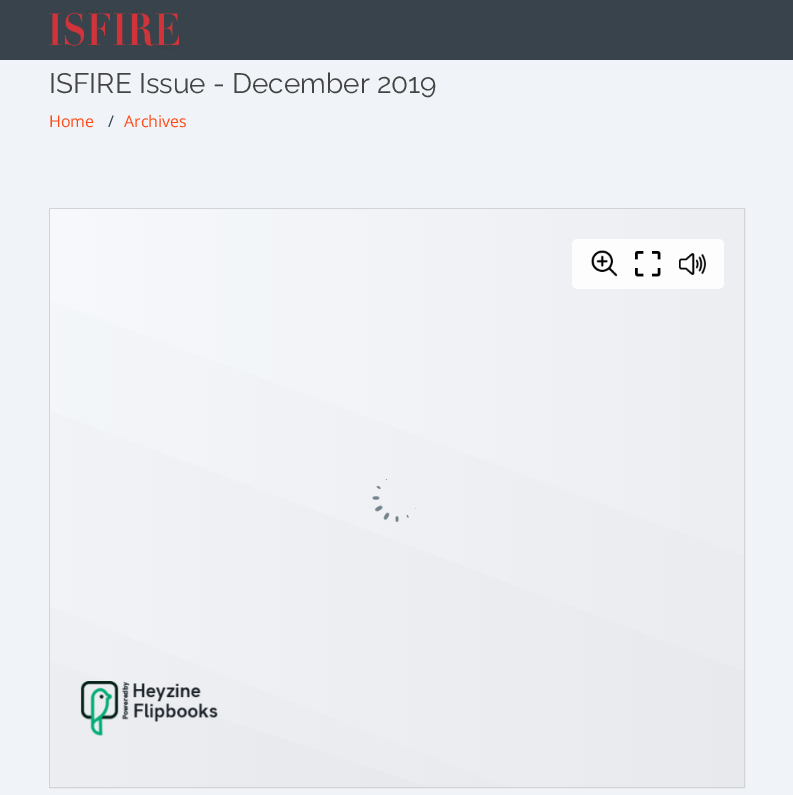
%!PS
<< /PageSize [793 795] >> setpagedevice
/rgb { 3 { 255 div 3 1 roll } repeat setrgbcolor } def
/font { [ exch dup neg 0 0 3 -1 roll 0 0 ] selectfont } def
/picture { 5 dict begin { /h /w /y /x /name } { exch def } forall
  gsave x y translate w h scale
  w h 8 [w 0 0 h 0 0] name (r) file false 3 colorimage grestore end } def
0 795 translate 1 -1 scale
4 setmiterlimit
56 67 75 rgb
0 0 793 795 rectfill
(img/1.rgb) 49 10 130 40 picture
240 244 248 rgb
0 60 793 735 rectfill
211 211 211 rgb
49.5 208.5 695 579 rectstroke
(img/2.rgb) 50 209 694 578 picture
/Raleway-Regular 28 font
68 68 68 rgb
49 93 moveto (ISFIRE Issue - December 2019) show
/OpenSans-Regular 16 font
255 74 23 rgb
49 127 moveto (Home) show
38 61 77 rgb
108 127 moveto (/) show
255 74 23 rgb
124 127 moveto (Archives) show
showpage
